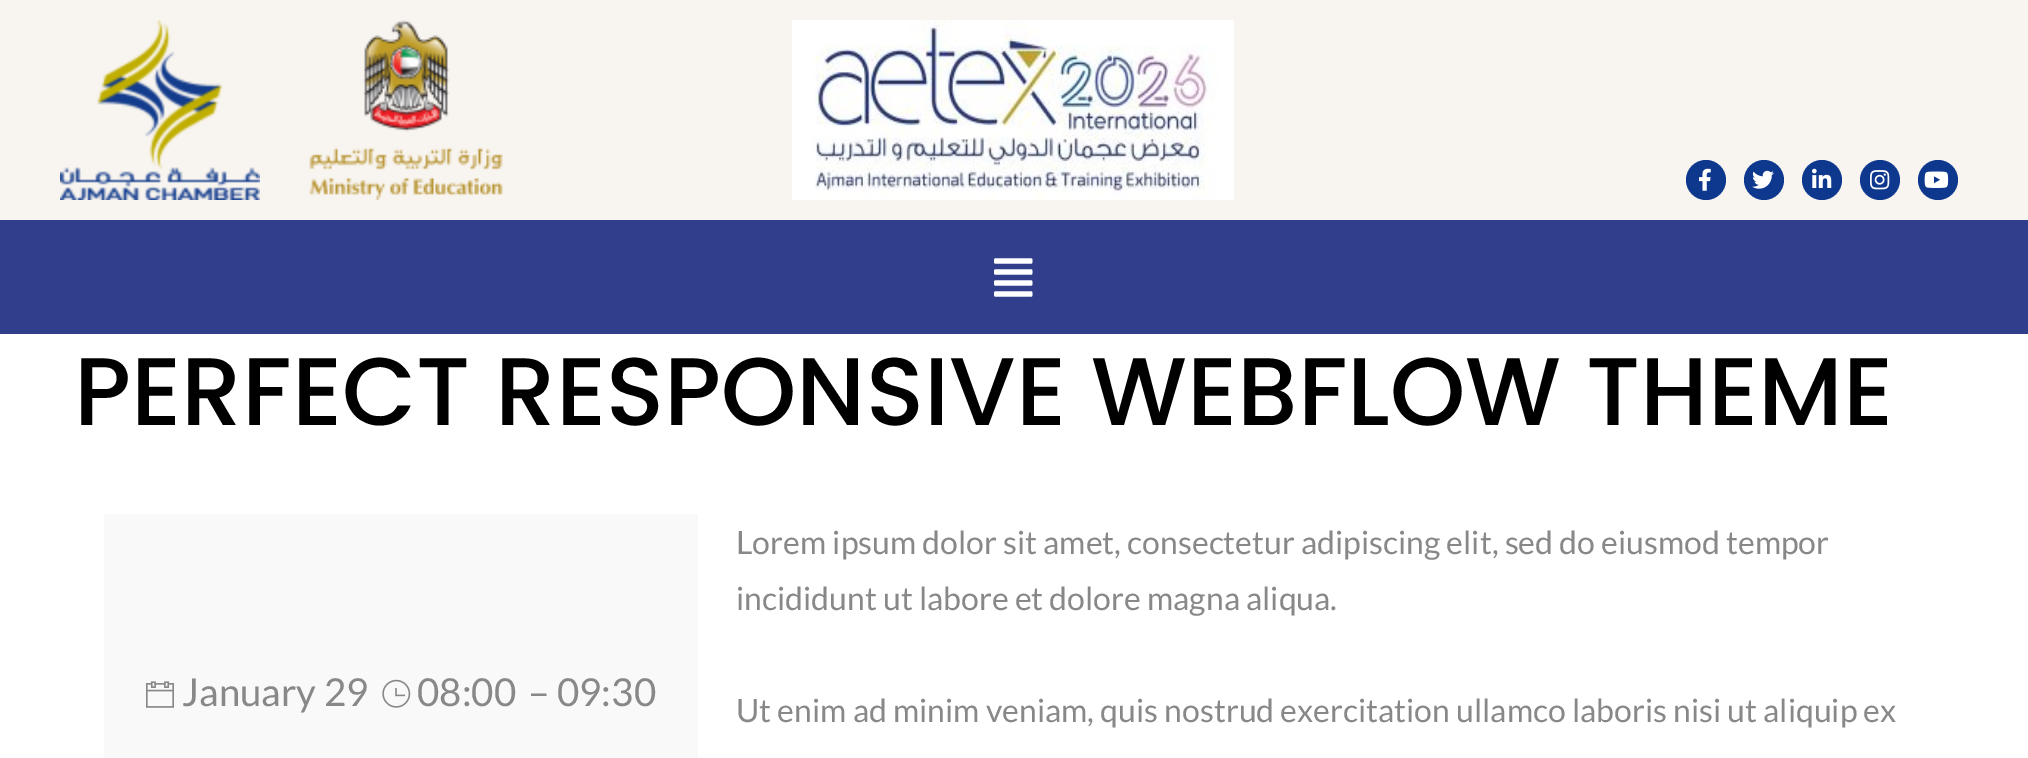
%!PS
<< /PageSize [2028 758] /PageUsesTransparency true >> setpagedevice
/rgb { 3 { 255 div 3 1 roll } repeat setrgbcolor } def
/font { [ exch dup neg 0 0 3 -1 roll 0 0 ] selectfont } def
/alpha { dup .setfillconstantalpha .setstrokeconstantalpha } def
/circle { newpath 0 360 arc closepath } def
/picture { 5 dict begin { /h /w /y /x /name } { exch def } forall
  gsave x y translate w h scale
  w h 8 [w 0 0 h 0 0] name (r) file false 3 colorimage grestore end } def
0 .pushpdf14devicefilter
0 758 translate 1 -1 scale
4 setmiterlimit
255 255 255 rgb
0 0 2028 758 rectfill
248 244 239 rgb
0 0 2028 220 rectfill
(img/1.rgb) 60 20 200 180 picture
(img/2.rgb) 309 20 194 180 picture
(img/3.rgb) 792 20 442 180 picture
14 56 142 rgb
1706 180 20 circle fill
(img/4.rgb) 1699 168 12 23 picture
1764 180 20 circle fill
(img/5.rgb) 1752 170 22 19 picture
1822 180 20 circle fill
(img/6.rgb) 1812 168 20 20 picture
1880 180 20 circle fill
(img/7.rgb) 1870 170 20 20 picture
1938 180 20 circle fill
(img/8.rgb) 1924 171 25 17 picture
48 62 140 rgb
0 220 2028 114 rectfill
(img/9.rgb) 994 258 39 39 picture
(img/10.rgb) 146 681 28 27 picture
(img/11.rgb) 382 679 29 29 picture
0.05 alpha
136 136 136 rgb
104 514 594 244 rectfill
/Poppins-Medium 96 font
1 alpha
0 0 0 rgb
74 425 moveto (PERFECT RESPONSIVE WEBFLOW THEME) show
/Lato-Regular 38.5 font
136 136 136 rgb
[
  [(January 29) 182 706]
  [(08:00) 417 706]
  [(– 09:30) 528 706]
] { aload pop moveto show } forall
/Lato-Regular 32 font
[
  [(Lorem ipsum dolor sit amet, consectetur adipiscing elit, sed do eiusmod tempor) 736 554]
  [(incididunt ut labore et dolore magna aliqua.) 736 610]
  [(Ut enim ad minim veniam, quis nostrud exercitation ullamco laboris nisi ut aliquip ex) 736 722]
] { aload pop moveto show } forall
.poppdf14devicefilter showpage
